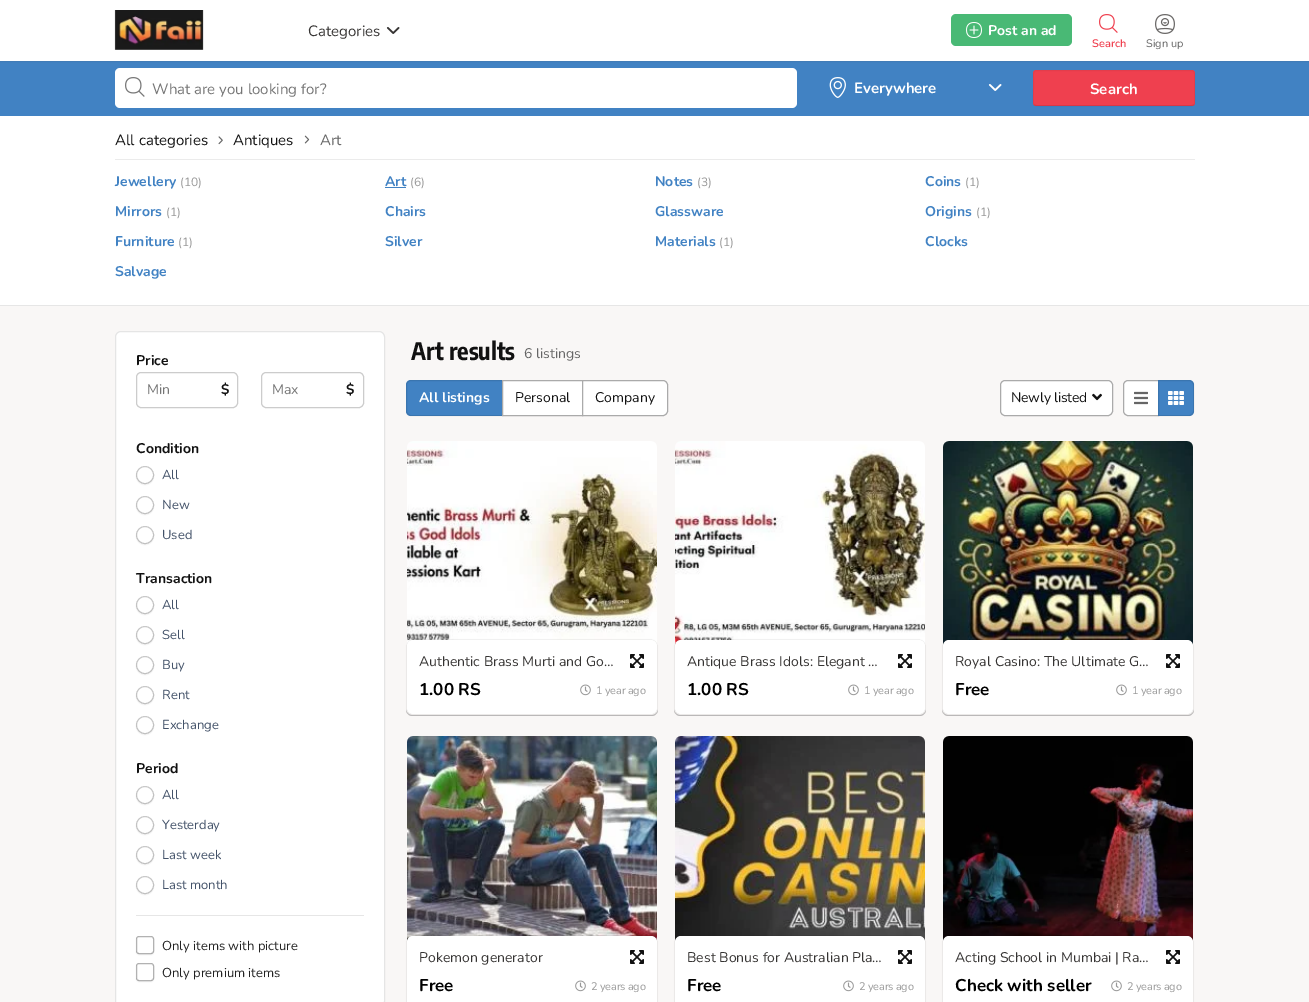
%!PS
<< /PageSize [1309 1002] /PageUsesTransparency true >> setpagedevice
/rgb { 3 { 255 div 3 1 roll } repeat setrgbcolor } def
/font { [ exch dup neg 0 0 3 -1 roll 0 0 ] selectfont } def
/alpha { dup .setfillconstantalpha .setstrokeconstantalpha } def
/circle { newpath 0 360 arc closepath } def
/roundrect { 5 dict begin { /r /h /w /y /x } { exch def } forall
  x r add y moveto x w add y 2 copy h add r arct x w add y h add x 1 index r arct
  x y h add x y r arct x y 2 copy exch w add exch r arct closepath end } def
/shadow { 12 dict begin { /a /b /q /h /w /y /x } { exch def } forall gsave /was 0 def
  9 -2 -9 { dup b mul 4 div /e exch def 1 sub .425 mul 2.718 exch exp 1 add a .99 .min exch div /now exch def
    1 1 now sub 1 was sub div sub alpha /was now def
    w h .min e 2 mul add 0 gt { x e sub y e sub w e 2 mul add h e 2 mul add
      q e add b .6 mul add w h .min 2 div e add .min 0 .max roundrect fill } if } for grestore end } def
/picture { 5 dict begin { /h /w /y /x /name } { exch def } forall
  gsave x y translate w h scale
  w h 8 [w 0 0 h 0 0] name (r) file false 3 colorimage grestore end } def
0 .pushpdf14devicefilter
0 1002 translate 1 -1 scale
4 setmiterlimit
249 247 246 rgb
0 0 1309 1002 rectfill
65 130 195 rgb
0 61 1309 55 rectfill
54 52 51 rgb
0 0 1309 61 0 1 0.25 shadow
255 255 255 rgb
0 0 1309 61 rectfill
(img/1.rgb) 114 10 90 40 picture
(img/2.rgb) 386 27 14 7 picture
73 185 117 rgb
951 14 121 32 5 roundrect fill
(img/3.rgb) 966 22 16 16 picture
(img/4.rgb) 1099 14 19 19 picture
(img/5.rgb) 1155 14 20 20 picture
255 255 255 rgb
115 68 682 40 5 roundrect fill
(img/6.rgb) 125 77 20 20 picture
(img/7.rgb) 829 77 17 21 picture
(img/8.rgb) 988 84 14 7 picture
239 64 79 rgb
1033 70 162 36 3 roundrect fill
0.1 alpha
0 0 0 rgb
1194 105 moveto 1192 105.5 lineto 1036 105.5 lineto 1034 105 lineto stroke
0.05 alpha
1034 105 moveto 1032.5 103 1033.5 91 1033.5 88 curveto 1033.5 78 lineto 1033.5 76.5 1032.5 70.5 1036 70.5 curveto 1192 70.5 lineto 1195.5 70.5 1194.5 76.5 1194.5 78 curveto 1194.5 88 lineto 1194.5 91 1195.5 103 1194 105 curveto stroke
1 alpha
[
  [0 116 1309 189 255 255 255]
  [0 305 1309 1 230 230 230]
  [115 159 1080 1 235 235 235]
] { aload pop rgb rectfill } forall
(img/9.rgb) 218 136 5 9 picture
(img/10.rgb) 304 135 6 9 picture
65 130 195 rgb
385 187 21 1 rectfill
255 255 255 rgb
115.5 331.5 269 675 5.5 roundrect gsave fill grestore
229 229 229 rgb
stroke
204 204 204 rgb
136.5 372.5 101 35 4.5 roundrect stroke
261.5 372.5 102 35 4.5 roundrect stroke
gsave
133 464 moveto 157 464 lineto 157 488 lineto 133 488 lineto closepath 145 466 moveto 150 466 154 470 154 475 curveto 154 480 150 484 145 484 curveto 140 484 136 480 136 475 curveto 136 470 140 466 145 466 curveto closepath eoclip newpath
0 0 0 rgb
136 467 18 18 9 0.5 0.05 shadow
grestore
0.2 alpha
0 0 0 rgb
145 475 8.5 circle stroke
gsave
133 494 moveto 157 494 lineto 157 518 lineto 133 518 lineto closepath 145 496 moveto 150 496 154 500 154 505 curveto 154 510 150 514 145 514 curveto 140 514 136 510 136 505 curveto 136 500 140 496 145 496 curveto closepath eoclip newpath
1 alpha
136 497 18 18 9 0.5 0.05 shadow
grestore
145 505 8.5 circle stroke
gsave
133 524 moveto 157 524 lineto 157 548 lineto 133 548 lineto closepath 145 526 moveto 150 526 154 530 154 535 curveto 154 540 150 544 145 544 curveto 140 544 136 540 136 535 curveto 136 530 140 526 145 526 curveto closepath eoclip newpath
1 alpha
136 527 18 18 9 0.5 0.05 shadow
grestore
145 535 8.5 circle stroke
gsave
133 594 moveto 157 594 lineto 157 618 lineto 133 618 lineto closepath 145 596 moveto 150 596 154 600 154 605 curveto 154 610 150 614 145 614 curveto 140 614 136 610 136 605 curveto 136 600 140 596 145 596 curveto closepath eoclip newpath
1 alpha
136 597 18 18 9 0.5 0.05 shadow
grestore
145 605 8.5 circle stroke
gsave
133 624 moveto 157 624 lineto 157 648 lineto 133 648 lineto closepath 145 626 moveto 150 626 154 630 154 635 curveto 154 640 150 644 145 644 curveto 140 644 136 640 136 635 curveto 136 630 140 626 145 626 curveto closepath eoclip newpath
1 alpha
136 627 18 18 9 0.5 0.05 shadow
grestore
145 635 8.5 circle stroke
gsave
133 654 moveto 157 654 lineto 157 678 lineto 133 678 lineto closepath 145 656 moveto 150 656 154 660 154 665 curveto 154 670 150 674 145 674 curveto 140 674 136 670 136 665 curveto 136 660 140 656 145 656 curveto closepath eoclip newpath
1 alpha
136 657 18 18 9 0.5 0.05 shadow
grestore
145 665 8.5 circle stroke
gsave
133 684 moveto 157 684 lineto 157 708 lineto 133 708 lineto closepath 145 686 moveto 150 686 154 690 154 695 curveto 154 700 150 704 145 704 curveto 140 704 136 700 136 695 curveto 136 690 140 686 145 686 curveto closepath eoclip newpath
1 alpha
136 687 18 18 9 0.5 0.05 shadow
grestore
145 695 8.5 circle stroke
gsave
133 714 moveto 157 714 lineto 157 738 lineto 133 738 lineto closepath 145 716 moveto 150 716 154 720 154 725 curveto 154 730 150 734 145 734 curveto 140 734 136 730 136 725 curveto 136 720 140 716 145 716 curveto closepath eoclip newpath
1 alpha
136 717 18 18 9 0.5 0.05 shadow
grestore
145 725 8.5 circle stroke
gsave
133 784 moveto 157 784 lineto 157 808 lineto 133 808 lineto closepath 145 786 moveto 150 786 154 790 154 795 curveto 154 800 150 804 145 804 curveto 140 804 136 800 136 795 curveto 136 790 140 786 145 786 curveto closepath eoclip newpath
1 alpha
136 787 18 18 9 0.5 0.05 shadow
grestore
145 795 8.5 circle stroke
gsave
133 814 moveto 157 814 lineto 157 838 lineto 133 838 lineto closepath 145 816 moveto 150 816 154 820 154 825 curveto 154 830 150 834 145 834 curveto 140 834 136 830 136 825 curveto 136 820 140 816 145 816 curveto closepath eoclip newpath
1 alpha
136 817 18 18 9 0.5 0.05 shadow
grestore
145 825 8.5 circle stroke
gsave
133 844 moveto 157 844 lineto 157 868 lineto 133 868 lineto closepath 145 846 moveto 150 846 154 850 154 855 curveto 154 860 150 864 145 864 curveto 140 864 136 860 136 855 curveto 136 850 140 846 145 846 curveto closepath eoclip newpath
1 alpha
136 847 18 18 9 0.5 0.05 shadow
grestore
145 855 8.5 circle stroke
gsave
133 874 moveto 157 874 lineto 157 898 lineto 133 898 lineto closepath 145 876 moveto 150 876 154 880 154 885 curveto 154 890 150 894 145 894 curveto 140 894 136 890 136 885 curveto 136 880 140 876 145 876 curveto closepath eoclip newpath
1 alpha
136 877 18 18 9 0.5 0.05 shadow
grestore
145 885 8.5 circle stroke
1 alpha
230 230 230 rgb
136 915 228 1 rectfill
gsave
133 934 moveto 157 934 lineto 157 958 lineto 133 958 lineto closepath 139 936 moveto 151 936 lineto 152.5 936 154 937.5 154 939 curveto 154 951 lineto 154 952.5 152.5 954 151 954 curveto 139 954 lineto 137.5 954 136 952.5 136 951 curveto 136 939 lineto 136 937.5 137.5 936 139 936 curveto closepath eoclip newpath
0 0 0 rgb
136 937 18 18 3 0.5 0.06 shadow
grestore
0.3 alpha
0 0 0 rgb
136.5 936.5 17 17 2.5 roundrect stroke
gsave
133 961 moveto 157 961 lineto 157 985 lineto 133 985 lineto closepath 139 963 moveto 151 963 lineto 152.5 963 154 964.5 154 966 curveto 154 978 lineto 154 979.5 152.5 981 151 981 curveto 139 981 lineto 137.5 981 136 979.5 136 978 curveto 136 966 lineto 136 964.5 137.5 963 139 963 curveto closepath eoclip newpath
1 alpha
136 964 18 18 3 0.5 0.06 shadow
grestore
136.5 963.5 17 17 2.5 roundrect stroke
1 alpha
65 130 195 rgb
411 380 moveto 503 380 lineto 503 416 lineto 411 416 lineto 408 416 406 414 406 411 curveto 406 385 lineto 406 382 408 380 411 380 curveto closepath fill
0.1 alpha
0 0 0 rgb
411 380.5 moveto 502.5 380.5 lineto 502.5 415.5 lineto 411 415.5 lineto 408.5 415.5 406.5 413.5 406.5 411 curveto 406.5 385 lineto 406.5 382.5 408.5 380.5 411 380.5 curveto closepath stroke
1 alpha
255 255 255 rgb
502.5 380.5 moveto 582.5 380.5 lineto 582.5 415.5 lineto 502.5 415.5 lineto closepath gsave fill grestore
170 170 170 rgb
stroke
255 255 255 rgb
582.5 380.5 moveto 663 380.5 lineto 665.5 380.5 667.5 382.5 667.5 385 curveto 667.5 411 lineto 667.5 413.5 665.5 415.5 663 415.5 curveto 582.5 415.5 lineto closepath gsave fill grestore
170 170 170 rgb
stroke
255 255 255 rgb
1000.5 380.5 112 35 4.5 roundrect gsave fill grestore
170 170 170 rgb
stroke
(img/11.rgb) 1092 393 10 8 picture
255 255 255 rgb
1128 380.5 moveto 1158.5 380.5 lineto 1158.5 415.5 lineto 1128 415.5 lineto 1125.5 415.5 1123.5 413.5 1123.5 411 curveto 1123.5 385 lineto 1123.5 382.5 1125.5 380.5 1128 380.5 curveto closepath gsave fill grestore
170 170 170 rgb
stroke
(img/12.rgb) 1134 391 14 14 picture
65 130 195 rgb
1158 380 moveto 1189 380 lineto 1192 380 1194 382 1194 385 curveto 1194 411 lineto 1194 414 1192 416 1189 416 curveto 1158 416 lineto closepath fill
0.1 alpha
0 0 0 rgb
1158.5 380.5 moveto 1189 380.5 lineto 1191.5 380.5 1193.5 382.5 1193.5 385 curveto 1193.5 411 lineto 1193.5 413.5 1191.5 415.5 1189 415.5 curveto 1158.5 415.5 lineto closepath stroke
1 alpha
(img/13.rgb) 1168 391 16 14 picture
187 185 185 rgb
406 709 moveto 406 710 lineto 406 713 409 716 412 716 curveto 652 716 lineto 655 716 658 713 658 710 curveto 658 709 lineto 658 712 655 715 652 715 curveto 412 715 lineto 409 715 406 712 406 709 curveto closepath fill
(img/14.rgb) 407 441 250 205 picture
0 0 0 rgb
407 640 250 74 6 0.5 0.2 shadow
255 255 255 rgb
407 640 250 74 6 roundrect fill
(img/15.rgb) 630 654 14 14 picture
(img/16.rgb) 580 684 11 12 picture
187 185 185 rgb
674 709 moveto 674 710 lineto 674 713 677 716 680 716 curveto 920 716 lineto 923 716 926 713 926 710 curveto 926 709 lineto 926 712 923 715 920 715 curveto 680 715 lineto 677 715 674 712 674 709 curveto closepath fill
(img/17.rgb) 675 441 250 205 picture
0 0 0 rgb
675 640 250 74 6 0.5 0.2 shadow
255 255 255 rgb
675 640 250 74 6 roundrect fill
(img/15.rgb) 898 654 14 14 picture
(img/16.rgb) 848 684 11 12 picture
187 185 185 rgb
942 709 moveto 942 710 lineto 942 713 945 716 948 716 curveto 1188 716 lineto 1191 716 1194 713 1194 710 curveto 1194 709 lineto 1194 712 1191 715 1188 715 curveto 948 715 lineto 945 715 942 712 942 709 curveto closepath fill
(img/18.rgb) 943 441 250 205 picture
0 0 0 rgb
943 640 250 74 6 0.5 0.2 shadow
255 255 255 rgb
943 640 250 74 6 roundrect fill
(img/15.rgb) 1166 654 14 14 picture
(img/16.rgb) 1116 684 11 12 picture
(img/19.rgb) 407 736 250 206 picture
0 0 0 rgb
407 936 250 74 6 0.5 0.2 shadow
255 255 255 rgb
407 936 250 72 6 roundrect fill
(img/15.rgb) 630 950 14 14 picture
(img/16.rgb) 575 980 11 12 picture
(img/20.rgb) 675 736 250 206 picture
0 0 0 rgb
675 936 250 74 6 0.5 0.2 shadow
255 255 255 rgb
675 936 250 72 6 roundrect fill
(img/15.rgb) 898 950 14 14 picture
(img/16.rgb) 843 980 11 12 picture
(img/21.rgb) 943 736 250 206 picture
0 0 0 rgb
943 936 250 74 6 0.5 0.2 shadow
255 255 255 rgb
943 936 250 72 6 roundrect fill
(img/15.rgb) 1166 950 14 14 picture
(img/16.rgb) 1111 980 11 12 picture
/Nunito-Regular 15 font
54 52 51 rgb
308 36 moveto (Categories) show
/Nunito-Bold 14 font
255 255 255 rgb
988 35 moveto (Post an ad) show
/Nunito-SemiBold 11 font
239 64 79 rgb
1092 47 moveto (Search) show
/Nunito-Regular 11 font
102 102 102 rgb
1146 47 moveto (Sign up) show
/Nunito-Regular 15 font
117 117 117 rgb
152 94 moveto (What are you looking for?) show
/Nunito-Bold 15 font
255 255 255 rgb
854 93 moveto (Everywhere) show
1090 94 moveto (Search) show
/Nunito-Regular 15 font
17 17 17 rgb
115 145 moveto (All categories) show
233 145 moveto (Antiques) show
102 102 102 rgb
320 145 moveto (Art) show
/Nunito-Bold 14 font
65 130 195 rgb
115 186 moveto (Jewellery) show
/Nunito-Regular 12 font
153 153 153 rgb
180 186 moveto (\(10\)) show
/Nunito-Bold 14 font
65 130 195 rgb
385 186 moveto (Art) show
/Nunito-Regular 12 font
153 153 153 rgb
410 186 moveto (\(6\)) show
/Nunito-Bold 14 font
65 130 195 rgb
655 186 moveto (Notes) show
/Nunito-Regular 12 font
153 153 153 rgb
697 186 moveto (\(3\)) show
/Nunito-Bold 14 font
65 130 195 rgb
925 186 moveto (Coins) show
/Nunito-Regular 12 font
153 153 153 rgb
965 186 moveto (\(1\)) show
/Nunito-Bold 14 font
65 130 195 rgb
115 216 moveto (Mirrors) show
/Nunito-Regular 12 font
153 153 153 rgb
166 216 moveto (\(1\)) show
/Nunito-Bold 14 font
65 130 195 rgb
[
  [(Chairs) 385 216]
  [(Glassware) 655 216]
  [(Origins) 925 216]
] { aload pop moveto show } forall
/Nunito-Regular 12 font
153 153 153 rgb
976 216 moveto (\(1\)) show
/Nunito-Bold 14 font
65 130 195 rgb
115 246 moveto (Furniture) show
/Nunito-Regular 12 font
153 153 153 rgb
178 246 moveto (\(1\)) show
/Nunito-Bold 14 font
65 130 195 rgb
385 246 moveto (Silver) show
655 246 moveto (Materials) show
/Nunito-Regular 12 font
153 153 153 rgb
719 246 moveto (\(1\)) show
/Nunito-Bold 14 font
65 130 195 rgb
925 246 moveto (Clocks) show
115 276 moveto (Salvage) show
17 17 17 rgb
136 365 moveto (Price) show
/Nunito-Regular 14 font
117 117 117 rgb
147 394 moveto (Min) show
/Nunito-Bold 14 font
17 17 17 rgb
221 394 moveto -2 0 ($) ashow
/Nunito-Regular 14 font
117 117 117 rgb
272 394 moveto (Max) show
/Nunito-Bold 14 font
17 17 17 rgb
346 394 moveto -2 0 ($) ashow
136 453 moveto (Condition) show
/Nunito-Regular 13 font
67 82 105 rgb
[
  [(All) 162 479]
  [(New) 162 509]
  [(Used) 162 539]
] { aload pop moveto show } forall
/Nunito-Bold 14 font
17 17 17 rgb
136 583 moveto (Transaction) show
/Nunito-Regular 13 font
67 82 105 rgb
[
  [(All) 162 609]
  [(Sell) 162 639]
  [(Buy) 162 669]
  [(Rent) 162 699]
  [(Exchange) 162 729]
] { aload pop moveto show } forall
/Nunito-Bold 14 font
17 17 17 rgb
136 773 moveto (Period) show
/Nunito-Regular 13 font
67 82 105 rgb
[
  [(All) 162 799]
  [(Yesterday) 162 829]
  [(Last week) 162 859]
  [(Last month) 162 889]
] { aload pop moveto show } forall
34 34 34 rgb
162 950 moveto (Only items with picture) show
162 977 moveto (Only premium items) show
/EncodeSansCondensed-Bold 24 font
17 17 17 rgb
411 360 moveto (Art results) show
/Nunito-Regular 14 font
102 102 102 rgb
524 358 moveto (6 listings) show
/Nunito-Bold 14 font
255 255 255 rgb
419 402 moveto (All listings) show
/Nunito-Regular 14 font
17 17 17 rgb
515 402 moveto (Personal) show
595 402 moveto (Company) show
1011 402 moveto -0.25 0 (Newly listed) ashow
54 52 51 rgb
419 666 moveto (Authentic Brass Murti and Go…) show
/Nunito-Bold 17 font
0 0 0 rgb
419 695 moveto (1.00 RS) show
/Nunito-Regular 11 font
153 153 153 rgb
596 694 moveto -0.25 0 (1 year ago) ashow
/Nunito-Regular 14 font
54 52 51 rgb
687 666 moveto (Antique Brass Idols: Elegant …) show
/Nunito-Bold 17 font
0 0 0 rgb
687 695 moveto (1.00 RS) show
/Nunito-Regular 11 font
153 153 153 rgb
864 694 moveto -0.25 0 (1 year ago) ashow
/Nunito-Regular 14 font
54 52 51 rgb
955 666 moveto (Royal Casino: The Ultimate G…) show
/Nunito-Bold 17 font
0 0 0 rgb
955 695 moveto (Free) show
/Nunito-Regular 11 font
153 153 153 rgb
1132 694 moveto -0.25 0 (1 year ago) ashow
/Nunito-Regular 14 font
54 52 51 rgb
419 962 moveto (Pokemon generator) show
/Nunito-Bold 17 font
0 0 0 rgb
419 991 moveto (Free) show
/Nunito-Regular 11 font
153 153 153 rgb
591 990 moveto -0.25 0 (2 years ago) ashow
/Nunito-Regular 14 font
54 52 51 rgb
687 962 moveto (Best Bonus for Australian Pla…) show
/Nunito-Bold 17 font
0 0 0 rgb
687 991 moveto (Free) show
/Nunito-Regular 11 font
153 153 153 rgb
859 990 moveto -0.25 0 (2 years ago) ashow
/Nunito-Regular 14 font
54 52 51 rgb
955 962 moveto (Acting School in Mumbai | Ra…) show
/Nunito-Bold 17 font
0 0 0 rgb
955 991 moveto (Check with seller) show
/Nunito-Regular 11 font
153 153 153 rgb
1127 990 moveto -0.25 0 (2 years ago) ashow
.poppdf14devicefilter showpage
